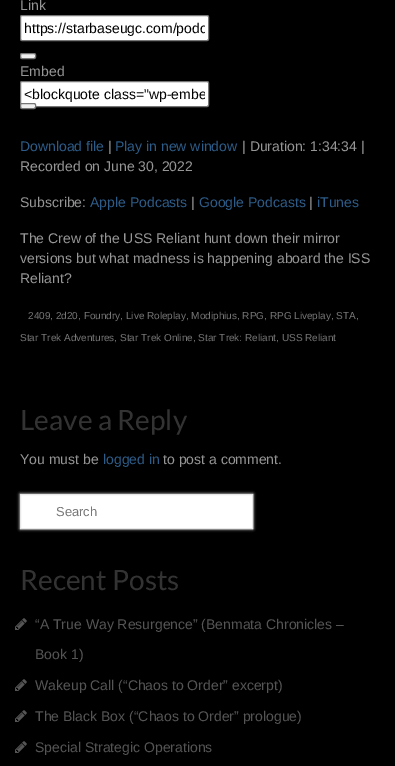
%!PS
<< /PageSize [395 766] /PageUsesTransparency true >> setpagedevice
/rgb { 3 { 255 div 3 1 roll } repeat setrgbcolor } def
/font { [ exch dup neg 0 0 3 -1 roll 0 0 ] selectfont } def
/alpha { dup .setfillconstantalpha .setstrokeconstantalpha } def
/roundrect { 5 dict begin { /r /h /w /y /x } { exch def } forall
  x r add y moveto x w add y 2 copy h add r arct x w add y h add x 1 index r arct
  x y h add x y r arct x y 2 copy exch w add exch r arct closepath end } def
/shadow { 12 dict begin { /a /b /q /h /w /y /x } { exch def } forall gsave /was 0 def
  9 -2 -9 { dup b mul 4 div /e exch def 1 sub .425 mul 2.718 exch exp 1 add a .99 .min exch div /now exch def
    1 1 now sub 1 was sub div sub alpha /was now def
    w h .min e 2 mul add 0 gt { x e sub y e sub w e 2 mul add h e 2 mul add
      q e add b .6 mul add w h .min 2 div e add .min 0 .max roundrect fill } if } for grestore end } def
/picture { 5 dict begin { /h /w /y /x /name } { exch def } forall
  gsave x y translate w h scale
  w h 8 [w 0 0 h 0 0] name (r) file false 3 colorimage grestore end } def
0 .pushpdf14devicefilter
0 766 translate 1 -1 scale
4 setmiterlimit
0 0 0 rgb
0 0 395 766 rectfill
255 255 255 rgb
20.5 15.5 188 25 1.5 roundrect gsave fill grestore
118 118 118 rgb
stroke
239 239 239 rgb
20.5 53.5 15 5 1.5 roundrect gsave fill grestore
118 118 118 rgb
stroke
255 255 255 rgb
20.5 81.5 188 25 1.5 roundrect gsave fill grestore
118 118 118 rgb
stroke
239 239 239 rgb
20.5 103.5 15 5 1.5 roundrect gsave fill grestore
118 118 118 rgb
stroke
255 255 255 rgb
20 494 233 35 0 1.5 1 shadow
20.5 494.5 moveto 252.5 494.5 lineto 252.5 528.5 lineto 20.5 528.5 lineto closepath gsave fill grestore
231 231 231 rgb
stroke
(img/1.rgb) 15 618 12 12 picture
(img/1.rgb) 15 679 12 12 picture
(img/1.rgb) 15 710 12 12 picture
(img/1.rgb) 15 741 12 12 picture
/LiberationSans-Regular 14 font
150 150 150 rgb
20 10 moveto (Link) show
gsave
24 18 181 20 rectclip
0 0 0 rgb
24 33 moveto (https://starbaseugc.com/podc) show
grestore
20 76 moveto (Embed) show
gsave
24 84 181 20 rectclip
0 0 0 rgb
24 99 moveto (<blockquote class="wp-embe) show
grestore
45 92 136 rgb
20 151 moveto (Download file) show
150 150 150 rgb
108 151 moveto (|) show
45 92 136 rgb
115 151 moveto (Play in new window) show
150 150 150 rgb
[
  [(| Duration: 1:34:34 |) 242 151]
  [(Recorded on June 30, 2022) 20 171]
  [(Subscribe:) 20 207]
] { aload pop moveto show } forall
45 92 136 rgb
90 207 moveto (Apple Podcasts) show
150 150 150 rgb
191 207 moveto (|) show
45 92 136 rgb
199 207 moveto (Google Podcasts) show
150 150 150 rgb
309 207 moveto (|) show
45 92 136 rgb
317 207 moveto (iTunes) show
150 150 150 rgb
[
  [(The Crew of the USS Reliant hunt down their mirror) 20 243]
  [(versions but what madness is happening aboard the ISS) 20 263]
  [(Reliant?) 20 283]
] { aload pop moveto show } forall
/LiberationSans-Regular 10 font
119 119 119 rgb
28 319 moveto (2409, 2d20, Foundry, Live Roleplay, Modiphius, RPG, RPG Liveplay, STA,) show
20 341 moveto (Star Trek Adventures, Star Trek Online, Star Trek: Reliant, USS Reliant) show
/Lato-Regular 28 font
51 51 51 rgb
20 430 moveto (Leave a Reply) show
/LiberationSans-Regular 14 font
150 150 150 rgb
20 464 moveto (You must be) show
45 92 136 rgb
103 464 moveto (logged in) show
150 150 150 rgb
163 464 moveto (to post a comment.) show
/LiberationSans-Regular 13 font
119 119 119 rgb
56 516 moveto (Search) show
/Lato-Regular 28 font
51 51 51 rgb
20 590 moveto (Recent Posts) show
/LiberationSans-Regular 14 font
85 85 85 rgb
[
  [(“A True Way Resurgence” \(Benmata Chronicles –) 35 629]
  [(Book 1\)) 35 659]
  [(Wakeup Call \(“Chaos to Order” excerpt\)) 35 690]
  [(The Black Box \(“Chaos to Order” prologue\)) 35 721]
  [(Special Strategic Operations) 35 752]
] { aload pop moveto show } forall
.poppdf14devicefilter showpage
